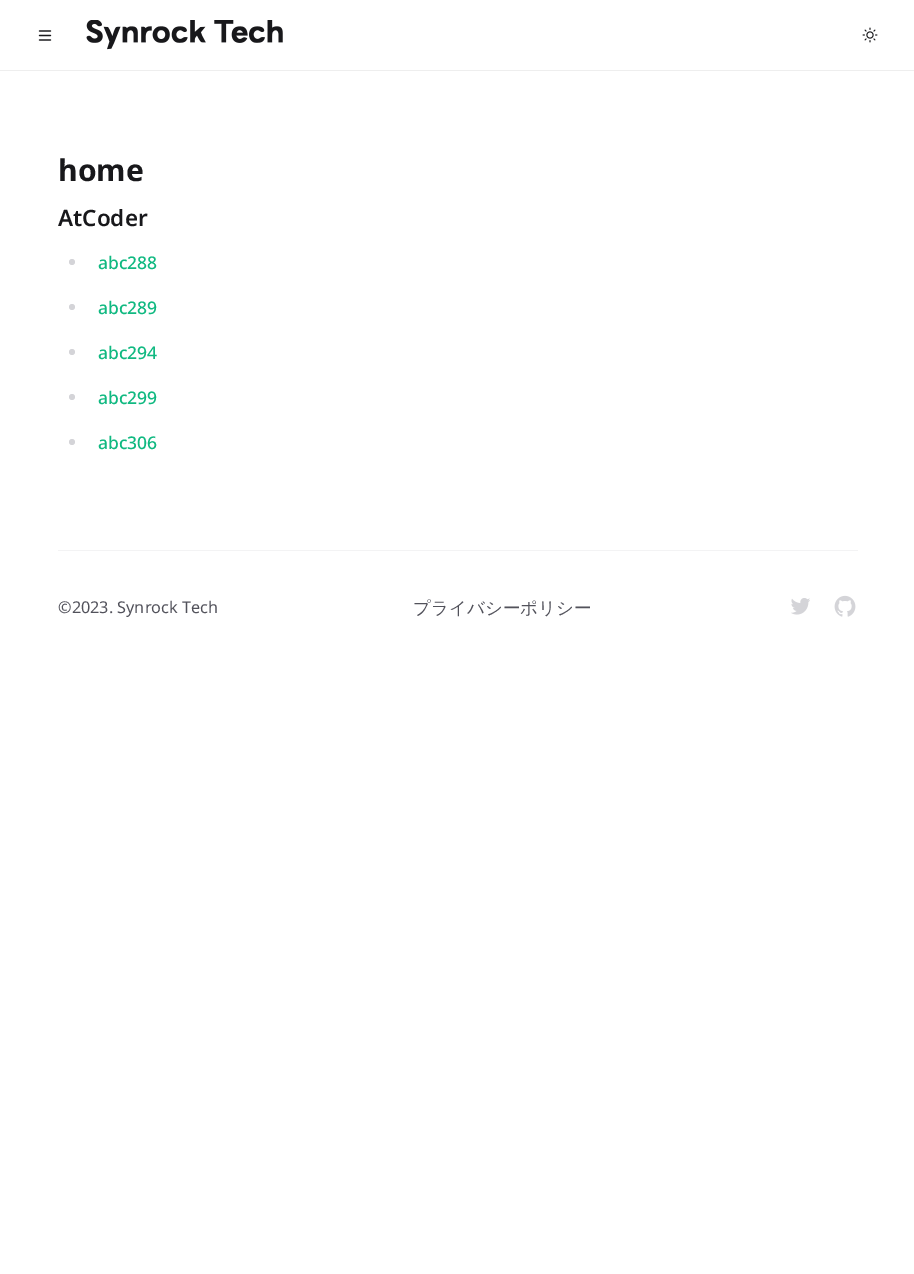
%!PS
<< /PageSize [914 1274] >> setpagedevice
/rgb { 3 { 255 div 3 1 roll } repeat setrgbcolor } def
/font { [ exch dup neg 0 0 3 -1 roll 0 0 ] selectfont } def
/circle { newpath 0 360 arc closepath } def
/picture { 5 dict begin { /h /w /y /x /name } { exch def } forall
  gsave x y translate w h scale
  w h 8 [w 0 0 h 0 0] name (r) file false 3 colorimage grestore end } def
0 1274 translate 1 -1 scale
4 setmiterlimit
255 255 255 rgb
0 0 914 1274 rectfill
24 24 27 rgb
1.2 setlinewidth
1 setlinecap
39.5 31 moveto 50.5 31 lineto 39.5 40 moveto 50.5 40 lineto 39.5 35.5 moveto 50.5 35.5 lineto stroke
(img/1.rgb) 86 20 197 30 picture
(img/2.rgb) 862 27 16 16 picture
238 238 238 rgb
0 70 914 1 rectfill
212 212 216 rgb
72 262 3 circle fill
72 307 3 circle fill
72 352 3 circle fill
72 397 3 circle fill
72 442 3 circle fill
243 243 244 rgb
58 550 800 1 rectfill
(img/3.rgb) 791 598 19 17 picture
(img/4.rgb) 834 595 22 22 picture
/NotoSans-Bold 30 font
24 24 27 rgb
58 181 moveto (home) show
/NotoSans-SemiBold 22.5 font
58 226 moveto (AtCoder) show
/NotoSans-Medium 17.5 font
16 185 129 rgb
[
  [(abc288) 98 269]
  [(abc289) 98 314]
  [(abc294) 98 359]
  [(abc299) 98 404]
  [(abc306) 98 449]
] { aload pop moveto show } forall
/NotoSans-Regular 16.25 font
82 82 91 rgb
58 613 moveto (©2023. Synrock Tech) show
/WenQuanYiZenHei-Medium 17.5 font
413 614 moveto (プライバシーポリシー) show
showpage
